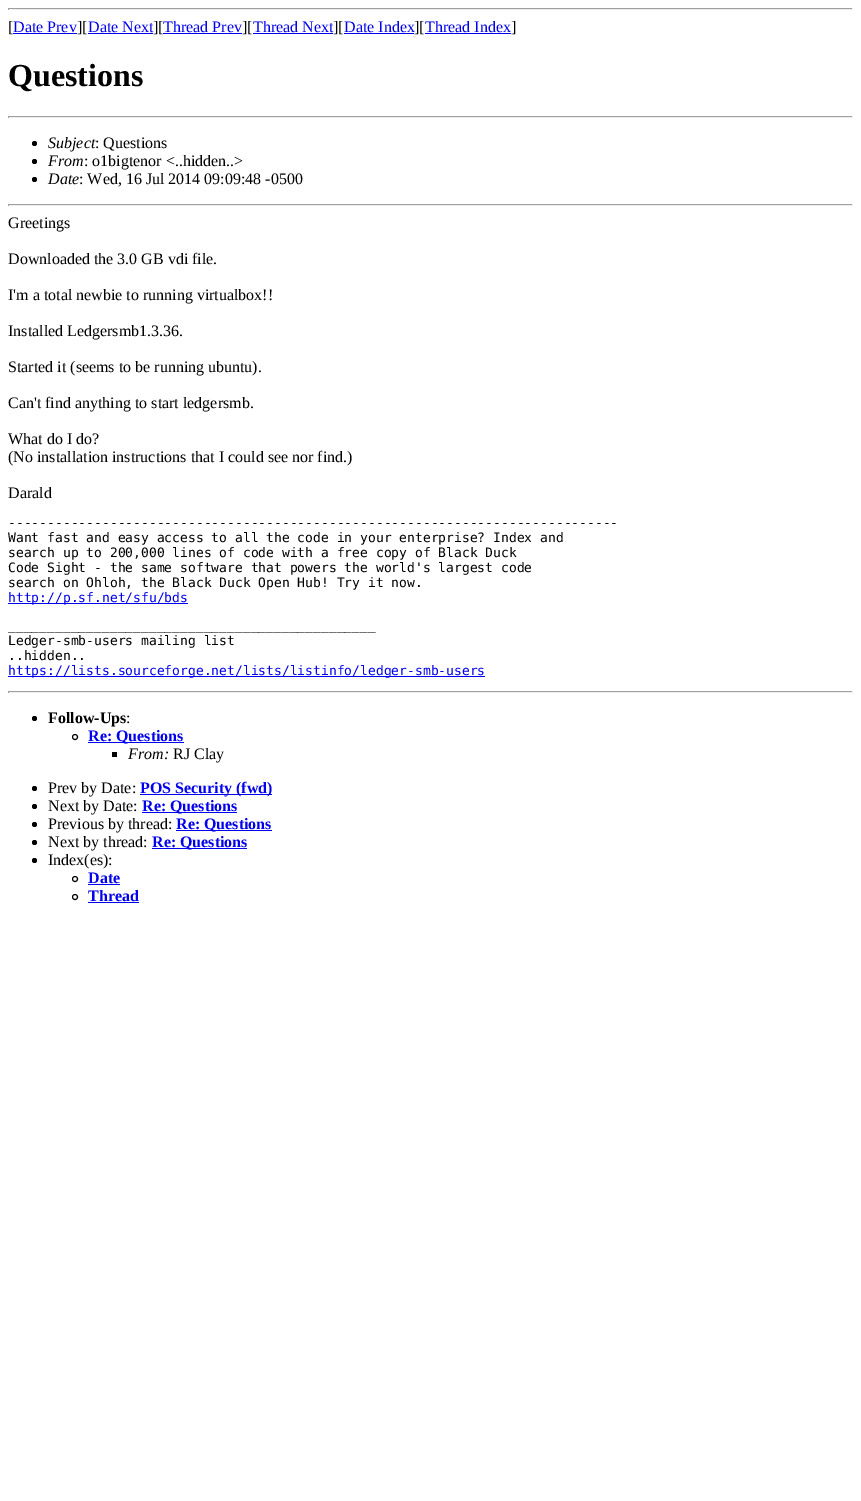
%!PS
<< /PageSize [861 1501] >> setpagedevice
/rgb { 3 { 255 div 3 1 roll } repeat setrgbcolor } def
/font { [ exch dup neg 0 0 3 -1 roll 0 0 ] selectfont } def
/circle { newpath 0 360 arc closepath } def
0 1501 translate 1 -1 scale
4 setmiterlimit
255 255 255 rgb
0 0 861 1501 rectfill
[
  [8 8 845 1 159 159 159]
  [852 8 1 2 238 238 238]
  [8 9 845 1 238 238 238]
  [8 8 1 2 159 159 159]
  [13 33 64 1 0 0 238]
  [88 33 65 1 0 0 238]
  [163 33 79 1 0 0 238]
  [253 33 80 1 0 0 238]
  [344 33 70 1 0 0 238]
  [425 33 86 1 0 0 238]
  [8 116 845 1 159 159 159]
  [852 116 1 2 238 238 238]
  [8 117 845 1 238 238 238]
  [8 116 1 2 159 159 159]
] { aload pop rgb rectfill } forall
0 0 0 rgb
34.5 143.5 2.5 circle fill
34.5 161.5 2.5 circle fill
34.5 179.5 2.5 circle fill
[
  [8 204 845 1 159 159 159]
  [852 204 1 2 238 238 238]
  [8 205 845 1 238 238 238]
  [8 204 1 2 159 159 159]
  [8 603 180 1 0 0 238]
  [8 676 477 1 0 0 238]
  [8 691 845 1 159 159 159]
  [852 691 1 2 238 238 238]
  [8 692 845 1 238 238 238]
  [8 691 1 2 159 159 159]
] { aload pop rgb rectfill } forall
0 0 0 rgb
34.5 718.5 2.5 circle fill
75 737 2.5 circle stroke
0 0 238 rgb
88 742 96 1 rectfill
0 0 0 rgb
112 752 5 5 rectfill
34.5 788.5 2.5 circle fill
0 0 238 rgb
140 794 132 1 rectfill
0 0 0 rgb
34.5 806.5 2.5 circle fill
0 0 238 rgb
142 812 95 1 rectfill
0 0 0 rgb
34.5 824.5 2.5 circle fill
0 0 238 rgb
176 830 96 1 rectfill
0 0 0 rgb
34.5 842.5 2.5 circle fill
0 0 238 rgb
152 848 95 1 rectfill
0 0 0 rgb
34.5 860.5 2.5 circle fill
75 879 2.5 circle stroke
0 0 238 rgb
88 884 32 1 rectfill
0 0 0 rgb
75 897 2.5 circle stroke
0 0 238 rgb
88 902 51 1 rectfill
/LiberationSerif-Regular 16 font
0 0 0 rgb
8 32 moveto ([) show
0 0 238 rgb
13 32 moveto (Date Prev) show
0 0 0 rgb
77 32 moveto (][) show
0 0 238 rgb
88 32 moveto (Date Next) show
0 0 0 rgb
153 32 moveto (][) show
0 0 238 rgb
163 32 moveto (Thread Prev) show
0 0 0 rgb
242 32 moveto (][) show
0 0 238 rgb
253 32 moveto (Thread Next) show
0 0 0 rgb
333 32 moveto (][) show
0 0 238 rgb
344 32 moveto (Date Index) show
0 0 0 rgb
414 32 moveto (][) show
0 0 238 rgb
425 32 moveto (Thread Index) show
0 0 0 rgb
511 32 moveto (]) show
/LiberationSerif-Bold 32 font
8 86 moveto (Questions) show
/LiberationSerif-Italic 16 font
48 148 moveto (Subject) show
/LiberationSerif-Regular 16 font
95 148 moveto (: Questions) show
/LiberationSerif-Italic 16 font
48 166 moveto (From) show
/LiberationSerif-Regular 16 font
84 166 moveto (: o1bigtenor <..hidden..>) show
/LiberationSerif-Italic 16 font
48 184 moveto (Date) show
/LiberationSerif-Regular 16 font
[
  [(: Wed, 16 Jul 2014 09:09:48 -0500) 79 184]
  [(Greetings) 8 228]
  [(Downloaded the 3.0 GB vdi file.) 8 264]
  [(I'm a total newbie to running virtualbox!!) 8 300]
  [(Installed Ledgersmb1.3.36.) 8 336]
  [(Started it \(seems to be running ubuntu\).) 8 372]
  [(Can't find anything to start ledgersmb.) 8 408]
  [(What do I do?) 8 444]
  [(\(No installation instructions that I could see nor find.\)) 8 462]
  [(Darald) 8 498]
] { aload pop moveto show } forall
/DejaVuSansMono-Regular 13 font
[
  [(------------------------------------------------------------------------------) 8 527]
  [(Want fast and easy access to all the code in your enterprise? Index and) 8 542]
  [(search up to 200,000 lines of code with a free copy of Black Duck) 8 557]
  [(Code Sight - the same software that powers the world's largest code) 8 572]
  [(search on Ohloh, the Black Duck Open Hub! Try it now.) 8 587]
] { aload pop moveto show } forall
0 0 238 rgb
8 602 moveto (http://p.sf.net/sfu/bds) show
0 0 0 rgb
[
  [(_______________________________________________) 8 630]
  [(Ledger-smb-users mailing list) 8 645]
  [(..hidden..) 8 660]
] { aload pop moveto show } forall
0 0 238 rgb
8 675 moveto (https://lists.sourceforge.net/lists/listinfo/ledger-smb-users) show
/LiberationSerif-Bold 16 font
0 0 0 rgb
48 723 moveto (Follow-Ups) show
/LiberationSerif-Regular 16 font
126 723 moveto (:) show
/LiberationSerif-Bold 16 font
0 0 238 rgb
88 741 moveto (Re: Questions) show
/LiberationSerif-Italic 16 font
0 0 0 rgb
128 759 moveto (From:) show
/LiberationSerif-Regular 16 font
173 759 moveto (RJ Clay) show
48 793 moveto (Prev by Date:) show
/LiberationSerif-Bold 16 font
0 0 238 rgb
140 793 moveto (POS Security \(fwd\)) show
/LiberationSerif-Regular 16 font
0 0 0 rgb
48 811 moveto (Next by Date:) show
/LiberationSerif-Bold 16 font
0 0 238 rgb
142 811 moveto (Re: Questions) show
/LiberationSerif-Regular 16 font
0 0 0 rgb
48 829 moveto (Previous by thread:) show
/LiberationSerif-Bold 16 font
0 0 238 rgb
176 829 moveto (Re: Questions) show
/LiberationSerif-Regular 16 font
0 0 0 rgb
48 847 moveto (Next by thread:) show
/LiberationSerif-Bold 16 font
0 0 238 rgb
152 847 moveto (Re: Questions) show
/LiberationSerif-Regular 16 font
0 0 0 rgb
48 865 moveto (Index\(es\):) show
/LiberationSerif-Bold 16 font
0 0 238 rgb
88 883 moveto (Date) show
88 901 moveto (Thread) show
showpage
